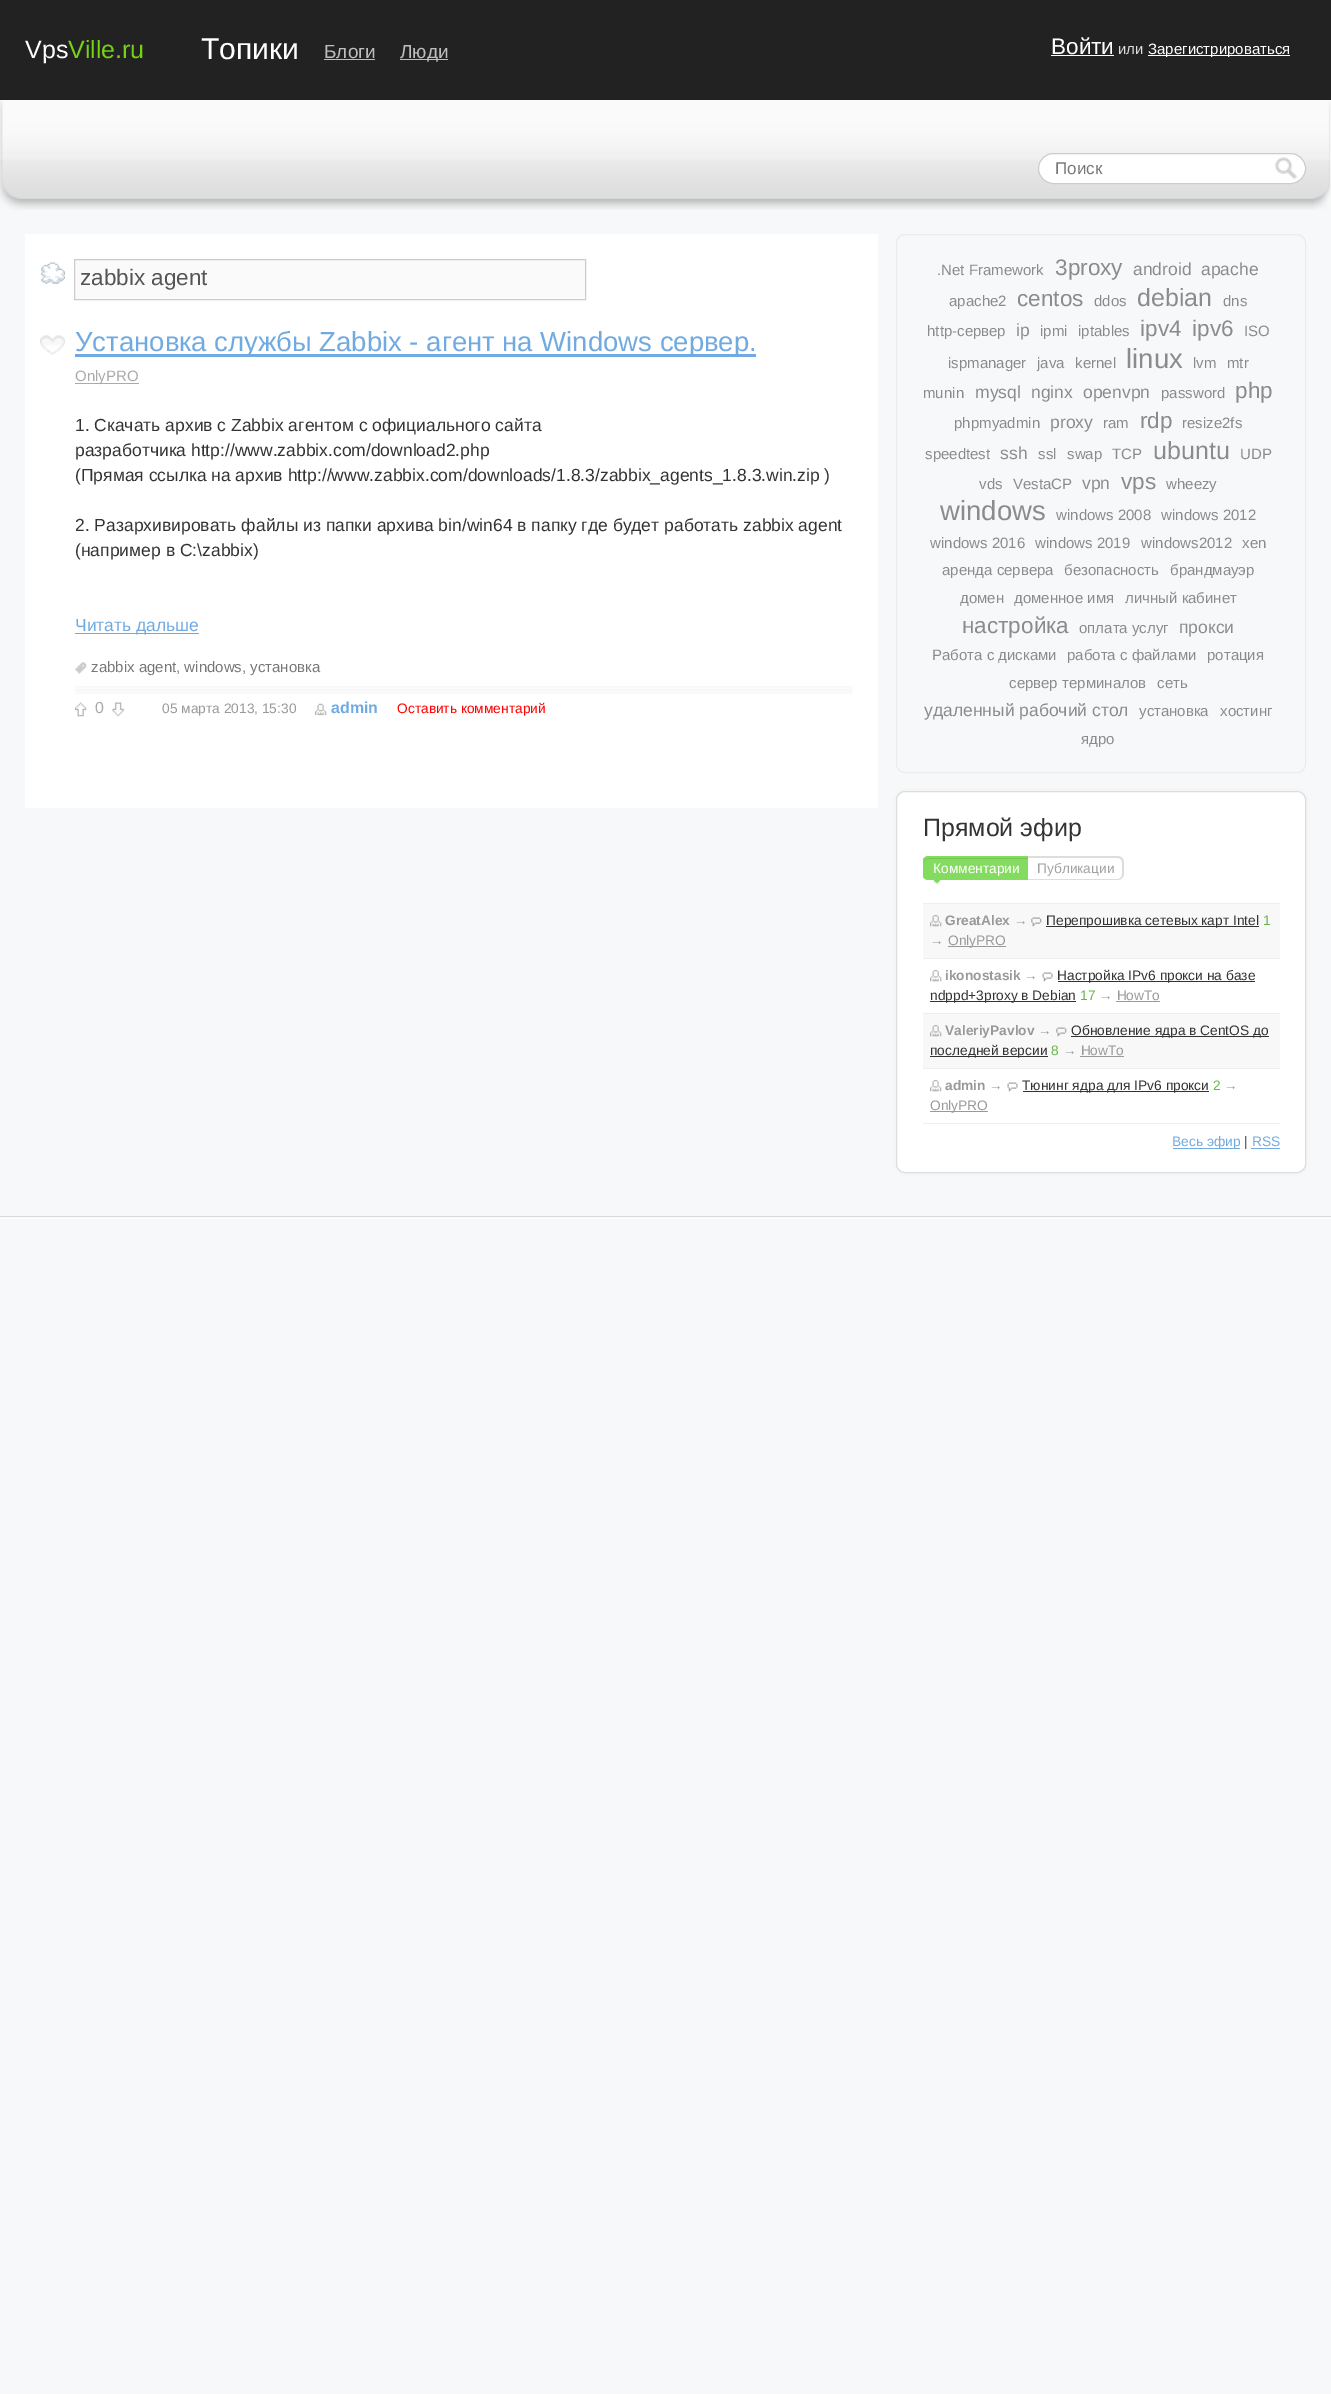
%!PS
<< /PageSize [1331 2394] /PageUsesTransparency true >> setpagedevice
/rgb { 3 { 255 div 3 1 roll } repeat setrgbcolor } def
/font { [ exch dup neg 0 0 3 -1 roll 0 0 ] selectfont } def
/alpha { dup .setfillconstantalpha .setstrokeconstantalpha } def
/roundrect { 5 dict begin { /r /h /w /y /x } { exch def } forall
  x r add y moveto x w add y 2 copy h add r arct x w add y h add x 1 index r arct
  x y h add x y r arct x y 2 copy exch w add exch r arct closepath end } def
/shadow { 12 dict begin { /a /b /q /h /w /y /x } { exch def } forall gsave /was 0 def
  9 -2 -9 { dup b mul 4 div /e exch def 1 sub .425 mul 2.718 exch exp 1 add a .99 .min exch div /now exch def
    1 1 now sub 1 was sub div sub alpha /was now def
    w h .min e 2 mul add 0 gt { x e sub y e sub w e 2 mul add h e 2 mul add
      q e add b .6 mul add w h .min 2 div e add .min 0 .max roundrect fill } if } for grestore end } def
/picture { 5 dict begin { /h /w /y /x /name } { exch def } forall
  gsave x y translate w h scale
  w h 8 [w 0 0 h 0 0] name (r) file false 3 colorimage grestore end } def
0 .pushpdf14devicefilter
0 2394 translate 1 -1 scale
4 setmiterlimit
247 248 249 rgb
0 0 1331 2394 rectfill
[
  [0 0 1331 100 34 34 34]
  [324 59 51 1 190 190 190]
  [400 59 48 1 190 190 190]
  [1051 55 63 1 255 255 255]
  [1148 55 142 1 255 255 255]
] { aload pop rgb rectfill } forall
(img/1.rgb) 0 100 1331 110 picture
(img/2.rgb) 1314 101 17 109 picture
1038.5 153.5 267 30 15 roundrect gsave fill grestore
204 204 204 rgb
stroke
(img/3.rgb) 1275 157 23 23 picture
255 255 255 rgb
25 234 853 574 rectfill
(img/4.rgb) 41 262 24 22 picture
250 250 250 rgb
74.5 259.5 moveto 585.5 259.5 lineto 585.5 299.5 lineto 74.5 299.5 lineto closepath gsave fill grestore
204 204 204 rgb
stroke
(img/5.rgb) 40 335 25 20 picture
[
  [75 354 681 3 112 170 224]
  [75 383 64 1 170 170 170]
  [75 633 124 1 112 170 224]
] { aload pop rgb rectfill } forall
(img/6.rgb) 75 662 12 12 picture
(img/7.rgb) 75 686 778 8 picture
(img/8.rgb) 75 702 12 15 picture
(img/9.rgb) 112 702 12 15 picture
(img/10.rgb) 315 703 12 13 picture
234 235 235 rgb
896.5 234.5 409 538 8.5 roundrect stroke
238 238 238 rgb
896 791 410 382 9 3 1 shadow
255 255 255 rgb
896.5 791.5 409 381 8.5 roundrect gsave fill grestore
221 221 221 rgb
stroke
131 220 95 rgb
929 856 moveto 1028 856 lineto 1028 880 lineto 929 880 lineto 925.5 880 923 877.5 923 874 curveto 923 862 lineto 923 858.5 925.5 856 929 856 curveto closepath fill
117 198 86 rgb
929 859 moveto 1028 859 lineto 1028 858 lineto 929 858 lineto 926 858 924 860 924 863 curveto 924 864 lineto 924 861 926 859 929 859 curveto closepath fill
gsave
923 856 357 28 rectclip
131 220 95 rgb
929 856 moveto 1028 856 lineto 1028 880 lineto 929 880 lineto 925 880 922 877 922 874 curveto 922 862 lineto 922 859 925 856 929 856 curveto closepath 929 858 moveto 1028 858 lineto 1028 879 lineto 929 879 lineto 926 879 924 877 924 874 curveto 924 862 lineto 924 860 926 858 929 858 curveto closepath eofill
grestore
(img/11.rgb) 933 880 7 4 picture
221 221 221 rgb
1028 856 moveto 1118 856 lineto 1121 856 1124 859 1124 862 curveto 1124 874 lineto 1124 877 1121 880 1118 880 curveto 1028 880 lineto closepath 1028 858 moveto 1118 858 lineto 1120 858 1122 860 1122 862 curveto 1122 874 lineto 1122 877 1120 879 1118 879 curveto 1028 879 lineto closepath eofill
[
  [923 903 357 1 238 238 238]
  [923 904 357 54 248 248 248]
  [923 958 357 1 238 238 238]
] { aload pop rgb rectfill } forall
(img/12.rgb) 930 915 12 12 picture
(img/13.rgb) 1031 917 11 10 picture
[
  [1046 926 213 1 51 51 51]
  [948 946 58 1 153 153 153]
  [923 1013 357 1 238 238 238]
] { aload pop rgb rectfill } forall
(img/14.rgb) 930 970 12 12 picture
(img/15.rgb) 1042 972 11 10 picture
[
  [1058 981 197 1 51 51 51]
  [930 1001 146 1 51 51 51]
  [1116 1001 44 1 153 153 153]
  [923 1014 357 54 248 248 248]
  [923 1068 357 1 238 238 238]
] { aload pop rgb rectfill } forall
(img/16.rgb) 930 1025 12 12 picture
(img/17.rgb) 1056 1027 11 10 picture
[
  [1071 1036 198 1 51 51 51]
  [930 1056 118 1 51 51 51]
  [1080 1056 44 1 153 153 153]
  [923 1123 357 1 238 238 238]
] { aload pop rgb rectfill } forall
(img/18.rgb) 930 1080 12 12 picture
(img/19.rgb) 1007 1082 11 10 picture
[
  [1023 1091 186 1 51 51 51]
  [930 1111 58 1 153 153 153]
  [1173 1148 67 1 112 170 224]
  [1251 1148 29 1 112 170 224]
  [0 1216 1331 1 218 218 218]
  [0 1218 1331 1 255 255 255]
] { aload pop rgb rectfill } forall
/LiberationSans-Regular 25 font
25 58 moveto (Vps) show
119 209 21 rgb
68 58 moveto (Ville.ru) show
/LiberationSans-Regular 30 font
255 255 255 rgb
201 59 moveto (Топики) show
/LiberationSans-Regular 19 font
190 190 190 rgb
324 58 moveto (Блоги) show
400 58 moveto (Люди) show
/LiberationSans-Regular 22.5 font
255 255 255 rgb
1051 54 moveto (Войти) show
/LiberationSans-Regular 15 font
221 221 221 rgb
1118 54 moveto (или) show
255 255 255 rgb
1148 54 moveto (Зарегистрироваться) show
/LiberationSans-Regular 17 font
119 119 119 rgb
1055 174 moveto (Поиск) show
/LiberationSans-Regular 22.5 font
85 85 85 rgb
80 285 moveto (zabbix agent) show
/LiberationSans-Regular 27.5 font
112 170 224 rgb
75 351 moveto (Установка службы Zabbix - агент на Windows сервер.) show
/LiberationSans-Regular 15 font
170 170 170 rgb
75 381 moveto (OnlyPRO) show
/LiberationSans-Regular 17.5 font
51 51 51 rgb
[
  [(1. Скачать архив с Zabbix агентом с официального сайта) 75 431]
  [(разработчика http://www.zabbix.com/download2.php) 75 456]
  [(\(Прямая ссылка на архив http://www.zabbix.com/downloads/1.8.3/zabbix_agents_1.8.3.win.zip \)) 75 481]
  [(2. Разархивировать файлы из папки архива bin/win64 в папку где будет работать zabbix agent) 75 531]
  [(\(например в C:\\zabbix\)) 75 556]
] { aload pop moveto show } forall
112 170 224 rgb
75 631 moveto (Читать дальше) show
/LiberationSans-Regular 15 font
119 119 119 rgb
91 672 moveto (zabbix agent, windows, установка) show
/LiberationSans-Regular 16 font
170 170 170 rgb
95 713 moveto (0) show
/LiberationSans-Regular 13.75 font
153 153 153 rgb
162 713 moveto (05 марта 2013, 15:30) show
/LiberationSans-Bold 16 font
112 170 224 rgb
331 713 moveto (admin) show
/LiberationSans-Regular 13.75 font
255 0 0 rgb
397 713 moveto (Оставить комментарий) show
/LiberationSans-Regular 15 font
139 139 139 rgb
937 275 moveto (.Net Framework) show
/LiberationSans-Regular 22.5 font
1055 275 moveto (3proxy) show
/LiberationSans-Regular 17.5 font
1133 275 moveto (android) show
1201 275 moveto (apache) show
/LiberationSans-Regular 15 font
949 306 moveto (apache2) show
/LiberationSans-Regular 22.5 font
1017 306 moveto (centos) show
/LiberationSans-Regular 15 font
1094 306 moveto (ddos) show
/LiberationSans-Regular 25 font
1137 306 moveto (debian) show
/LiberationSans-Regular 15 font
1223 306 moveto (dns) show
927 336 moveto (http-сервер) show
/LiberationSans-Regular 17.5 font
1016 336 moveto (ip) show
/LiberationSans-Regular 15 font
1040 336 moveto (ipmi) show
1078 336 moveto (iptables) show
/LiberationSans-Regular 22.5 font
1140 336 moveto (ipv4) show
1192 336 moveto (ipv6) show
/LiberationSans-Regular 15 font
[
  [(ISO) 1244 336]
  [(ispmanager) 948 368]
  [(java) 1037 368]
  [(kernel) 1075 368]
] { aload pop moveto show } forall
/LiberationSans-Regular 27.5 font
1126 368 moveto (linux) show
/LiberationSans-Regular 15 font
[
  [(lvm) 1193 368]
  [(mtr) 1227 368]
  [(munin) 923 398]
] { aload pop moveto show } forall
/LiberationSans-Regular 17.5 font
[
  [(mysql) 975 398]
  [(nginx) 1031 398]
  [(openvpn) 1083 398]
] { aload pop moveto show } forall
/LiberationSans-Regular 15 font
1161 398 moveto (password) show
/LiberationSans-Regular 22.5 font
1235 398 moveto (php) show
/LiberationSans-Regular 15 font
954 428 moveto (phpmyadmin) show
/LiberationSans-Regular 17.5 font
1050 428 moveto (proxy) show
/LiberationSans-Regular 15 font
1103 428 moveto (ram) show
/LiberationSans-Regular 22.5 font
1140 428 moveto (rdp) show
/LiberationSans-Regular 15 font
1182 428 moveto (resize2fs) show
925 459 moveto (speedtest) show
/LiberationSans-Regular 17.5 font
1000 459 moveto (ssh) show
/LiberationSans-Regular 15 font
[
  [(ssl) 1038 459]
  [(swap) 1067 459]
  [(TCP) 1112 459]
] { aload pop moveto show } forall
/LiberationSans-Regular 25 font
1153 459 moveto (ubuntu) show
/LiberationSans-Regular 15 font
[
  [(UDP) 1240 459]
  [(vds) 979 489]
  [(VestaCP) 1013 489]
] { aload pop moveto show } forall
/LiberationSans-Regular 17.5 font
1082 489 moveto (vpn) show
/LiberationSans-Regular 22.5 font
1121 489 moveto (vps) show
/LiberationSans-Regular 15 font
1166 489 moveto (wheezy) show
/LiberationSans-Regular 27.5 font
940 520 moveto (windows) show
/LiberationSans-Regular 15 font
[
  [(windows 2008) 1056 520]
  [(windows 2012) 1161 520]
  [(windows 2016) 930 548]
  [(windows 2019) 1035 548]
  [(windows2012) 1141 548]
  [(xen) 1242 548]
  [(аренда сервера) 942 575]
  [(безопасность) 1064 575]
  [(брандмауэр) 1170 575]
  [(домен) 960 603]
  [(доменное имя) 1014 603]
  [(личный кабинет) 1125 603]
] { aload pop moveto show } forall
/LiberationSans-Regular 22.5 font
962 633 moveto (настройка) show
/LiberationSans-Regular 15 font
1079 633 moveto (оплата услуг) show
/LiberationSans-Regular 17.5 font
1179 633 moveto (прокси) show
/LiberationSans-Regular 15 font
[
  [(Работа с дисками) 932 660]
  [(работа с файлами) 1067 660]
  [(ротация) 1207 660]
  [(сервер терминалов) 1009 688]
  [(сеть) 1157 688]
] { aload pop moveto show } forall
/LiberationSans-Regular 17.5 font
924 716 moveto (удаленный рабочий стол) show
/LiberationSans-Regular 15 font
[
  [(установка) 1139 716]
  [(хостинг) 1220 716]
  [(ядро) 1081 744]
] { aload pop moveto show } forall
/LiberationSans-Regular 25 font
51 51 51 rgb
923 836 moveto (Прямой эфир) show
/LiberationSans-Regular 13.75 font
255 255 255 rgb
933 873 moveto (Комментарии) show
162 162 162 rgb
1037 873 moveto (Публикации) show
/LiberationSans-Bold 13.75 font
153 153 153 rgb
945 925 moveto (GreatAlex) show
/LiberationSans-Regular 13.75 font
1014 925 moveto (→) show
51 51 51 rgb
1046 925 moveto (Перепрошивка сетевых карт Intel) show
102 183 70 rgb
1263 925 moveto (1) show
153 153 153 rgb
930 945 moveto (→) show
948 945 moveto (OnlyPRO) show
/LiberationSans-Bold 13.75 font
945 980 moveto (ikonostasik) show
/LiberationSans-Regular 13.75 font
1024 980 moveto (→) show
51 51 51 rgb
1057 980 moveto (Настройка IPv6 прокси на базе) show
930 1000 moveto (ndppd+3proxy в Debian) show
102 183 70 rgb
1080 1000 moveto (17) show
153 153 153 rgb
1099 1000 moveto (→ HowTo) show
/LiberationSans-Bold 13.75 font
945 1035 moveto (ValeriyPavlov) show
/LiberationSans-Regular 13.75 font
1038 1035 moveto (→) show
51 51 51 rgb
1071 1035 moveto (Обновление ядра в CentOS до) show
930 1055 moveto (последней версии) show
102 183 70 rgb
1051 1055 moveto (8) show
153 153 153 rgb
1063 1055 moveto (→ HowTo) show
/LiberationSans-Bold 13.75 font
945 1090 moveto (admin) show
/LiberationSans-Regular 13.75 font
989 1090 moveto (→) show
51 51 51 rgb
1022 1090 moveto (Тюнинг ядра для IPv6 прокси) show
102 183 70 rgb
1213 1090 moveto (2) show
153 153 153 rgb
1224 1090 moveto (→) show
930 1110 moveto (OnlyPRO) show
112 170 224 rgb
1172 1146 moveto (Весь эфир) show
51 51 51 rgb
1244 1146 moveto (|) show
112 170 224 rgb
1252 1146 moveto (RSS) show
.poppdf14devicefilter showpage
